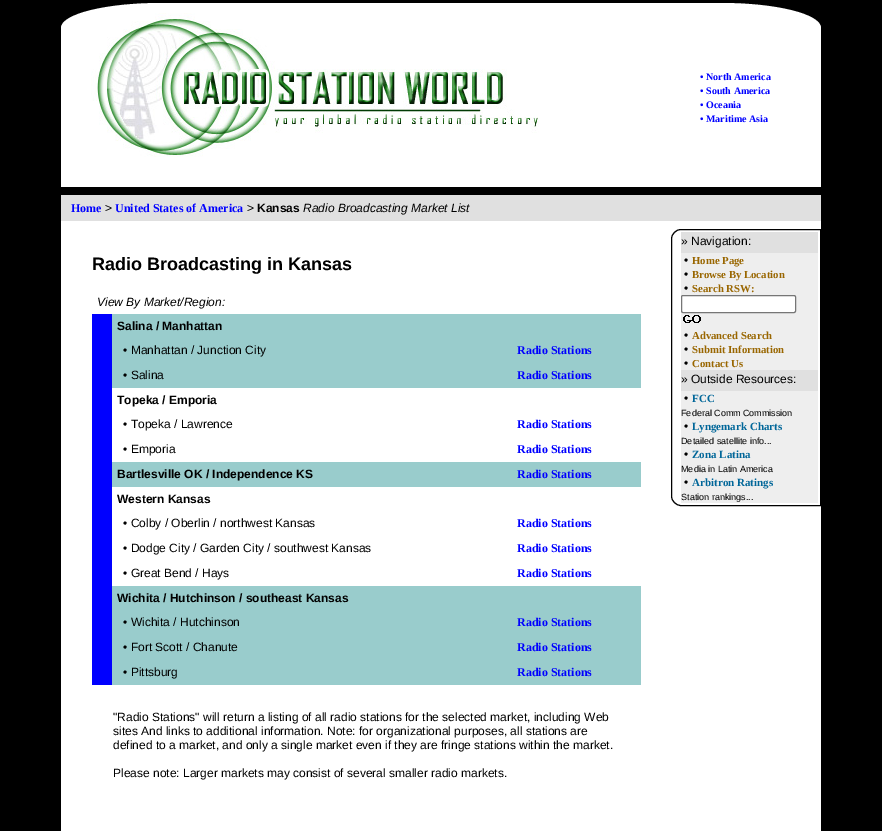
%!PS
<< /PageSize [882 831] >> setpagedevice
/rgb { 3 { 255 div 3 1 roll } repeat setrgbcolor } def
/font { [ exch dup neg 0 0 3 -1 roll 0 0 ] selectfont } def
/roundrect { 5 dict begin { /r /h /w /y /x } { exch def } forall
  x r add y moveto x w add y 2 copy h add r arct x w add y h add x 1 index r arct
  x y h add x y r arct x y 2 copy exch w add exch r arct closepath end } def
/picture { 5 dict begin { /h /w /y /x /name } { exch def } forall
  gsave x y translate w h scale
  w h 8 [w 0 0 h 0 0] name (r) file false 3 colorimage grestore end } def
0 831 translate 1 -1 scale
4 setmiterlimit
0 0 0 rgb
0 0 882 831 rectfill
255 255 255 rgb
161 3 moveto 721 3 lineto 776 3 821 14 821 28 curveto 821 187 lineto 61 187 lineto 61 28 lineto 61 14 106 3 161 3 curveto closepath fill
(img/1.rgb) 91 13 448 144 picture
[
  [61 221 760 610 255 255 255]
  [61 195 760 26 224 224 224]
  [112 314 529 74 153 204 204]
  [92 314 20 371 0 0 255]
  [112 462 529 25 153 204 204]
  [112 586 529 99 153 204 204]
] { aload pop rgb rectfill } forall
0 0 0 rgb
681 229.5 moveto 820.5 229.5 lineto 820.5 505.5 lineto 681 505.5 lineto 676 505.5 671.5 501 671.5 496 curveto 671.5 239 lineto 671.5 234 676 229.5 681 229.5 curveto closepath stroke
224 224 224 rgb
681 232 137 21 rectfill
238 238 238 rgb
681 253 137 117 rectfill
255 255 255 rgb
681.5 295.5 114 17 1.5 roundrect gsave fill grestore
118 118 118 rgb
stroke
(img/2.rgb) 683 315 18 8 picture
224 224 224 rgb
681 370 137 21 rectfill
238 238 238 rgb
681 391 137 112 rectfill
/LiberationSerif-Bold 10 font
0 0 255 rgb
[
  [(• North America) 700 80]
  [(• South America) 700 94]
  [(• Oceania) 700 108]
  [(• Maritime Asia) 700 122]
] { aload pop moveto show } forall
/LiberationSerif-Bold 12 font
71 212 moveto (Home) show
/LiberationSans-Regular 12 font
0 0 0 rgb
105 212 moveto (>) show
/LiberationSerif-Bold 12 font
0 0 255 rgb
115 212 moveto (United States of America) show
/LiberationSans-Regular 12 font
0 0 0 rgb
247 212 moveto (>) show
/LiberationSans-Bold 12 font
257 212 moveto (Kansas) show
/LiberationSans-Italic 12 font
303 212 moveto (Radio Broadcasting Market List) show
/LiberationSans-Bold 18 font
92 270 moveto (Radio Broadcasting in Kansas) show
/LiberationSans-Italic 12 font
97 306 moveto (View By Market/Region:) show
/LiberationSans-Bold 12 font
117 330 moveto (Salina / Manhattan) show
/LiberationSans-Regular 12 font
123 354 moveto (• Manhattan / Junction City) show
/LiberationSerif-Bold 12 font
0 0 255 rgb
517 354 moveto (Radio Stations) show
/LiberationSans-Regular 12 font
0 0 0 rgb
123 379 moveto (• Salina) show
/LiberationSerif-Bold 12 font
0 0 255 rgb
517 379 moveto (Radio Stations) show
/LiberationSans-Bold 12 font
0 0 0 rgb
117 404 moveto (Topeka / Emporia) show
/LiberationSans-Regular 12 font
123 428 moveto (• Topeka / Lawrence) show
/LiberationSerif-Bold 12 font
0 0 255 rgb
517 428 moveto (Radio Stations) show
/LiberationSans-Regular 12 font
0 0 0 rgb
123 453 moveto (• Emporia) show
/LiberationSerif-Bold 12 font
0 0 255 rgb
517 453 moveto (Radio Stations) show
/LiberationSans-Bold 12 font
0 0 0 rgb
117 478 moveto (Bartlesville OK / Independence KS) show
/LiberationSerif-Bold 12 font
0 0 255 rgb
517 478 moveto (Radio Stations) show
/LiberationSans-Bold 12 font
0 0 0 rgb
117 503 moveto (Western Kansas) show
/LiberationSans-Regular 12 font
123 527 moveto (• Colby / Oberlin / northwest Kansas) show
/LiberationSerif-Bold 12 font
0 0 255 rgb
517 527 moveto (Radio Stations) show
/LiberationSans-Regular 12 font
0 0 0 rgb
123 552 moveto (• Dodge City / Garden City / southwest Kansas) show
/LiberationSerif-Bold 12 font
0 0 255 rgb
517 552 moveto (Radio Stations) show
/LiberationSans-Regular 12 font
0 0 0 rgb
123 577 moveto (• Great Bend / Hays) show
/LiberationSerif-Bold 12 font
0 0 255 rgb
517 577 moveto (Radio Stations) show
/LiberationSans-Bold 12 font
0 0 0 rgb
117 602 moveto (Wichita / Hutchinson / southeast Kansas) show
/LiberationSans-Regular 12 font
123 626 moveto (• Wichita / Hutchinson) show
/LiberationSerif-Bold 12 font
0 0 255 rgb
517 626 moveto (Radio Stations) show
/LiberationSans-Regular 12 font
0 0 0 rgb
123 651 moveto (• Fort Scott / Chanute) show
/LiberationSerif-Bold 12 font
0 0 255 rgb
517 651 moveto (Radio Stations) show
/LiberationSans-Regular 12 font
0 0 0 rgb
123 676 moveto (• Pittsburg) show
/LiberationSerif-Bold 12 font
0 0 255 rgb
517 676 moveto (Radio Stations) show
/LiberationSans-Regular 12 font
0 0 0 rgb
[
  [("Radio Stations" will return a listing of all radio stations for the selected market, including Web) 113 721]
  [(sites And links to additional information. Note: for organizational purposes, all stations are) 113 735]
  [(defined to a market, and only a single market even if they are fringe stations within the market.) 113 749]
  [(Please note: Larger markets may consist of several smaller radio markets.) 113 777]
  [(» Navigation:) 681 245]
  [(•) 684 264]
] { aload pop moveto show } forall
/LiberationSerif-Bold 10.75 font
153 102 0 rgb
692 264 moveto (Home Page) show
/LiberationSans-Regular 12 font
0 0 0 rgb
684 278 moveto (•) show
/LiberationSerif-Bold 10.75 font
153 102 0 rgb
692 278 moveto (Browse By Location) show
/LiberationSans-Regular 12 font
0 0 0 rgb
684 292 moveto (•) show
/LiberationSerif-Bold 10.75 font
153 102 0 rgb
692 292 moveto (Search RSW:) show
/LiberationSans-Regular 12 font
0 0 0 rgb
684 339 moveto (•) show
/LiberationSerif-Bold 10.75 font
153 102 0 rgb
692 339 moveto (Advanced Search) show
/LiberationSans-Regular 12 font
0 0 0 rgb
684 353 moveto (•) show
/LiberationSerif-Bold 10.75 font
153 102 0 rgb
692 353 moveto (Submit Information) show
/LiberationSans-Regular 12 font
0 0 0 rgb
684 367 moveto (•) show
/LiberationSerif-Bold 10.75 font
153 102 0 rgb
692 367 moveto (Contact Us) show
/LiberationSans-Regular 12 font
0 0 0 rgb
681 383 moveto (» Outside Resources:) show
684 402 moveto (•) show
/LiberationSerif-Bold 11 font
0 102 153 rgb
692 402 moveto (FCC) show
/LiberationSans-Regular 9 font
0 0 0 rgb
681 416 moveto (Federal Comm Commission) show
/LiberationSans-Regular 12 font
684 430 moveto (•) show
/LiberationSerif-Bold 11 font
0 102 153 rgb
692 430 moveto (Lyngemark Charts) show
/LiberationSans-Regular 9 font
0 0 0 rgb
681 444 moveto (Detailed satellite info...) show
/LiberationSans-Regular 12 font
684 458 moveto (•) show
/LiberationSerif-Bold 11 font
0 102 153 rgb
692 458 moveto (Zona Latina) show
/LiberationSans-Regular 9 font
0 0 0 rgb
681 472 moveto (Media in Latin America) show
/LiberationSans-Regular 12 font
684 486 moveto (•) show
/LiberationSerif-Bold 11 font
0 102 153 rgb
692 486 moveto (Arbitron Ratings) show
/LiberationSans-Regular 9 font
0 0 0 rgb
681 500 moveto (Station rankings...) show
showpage
